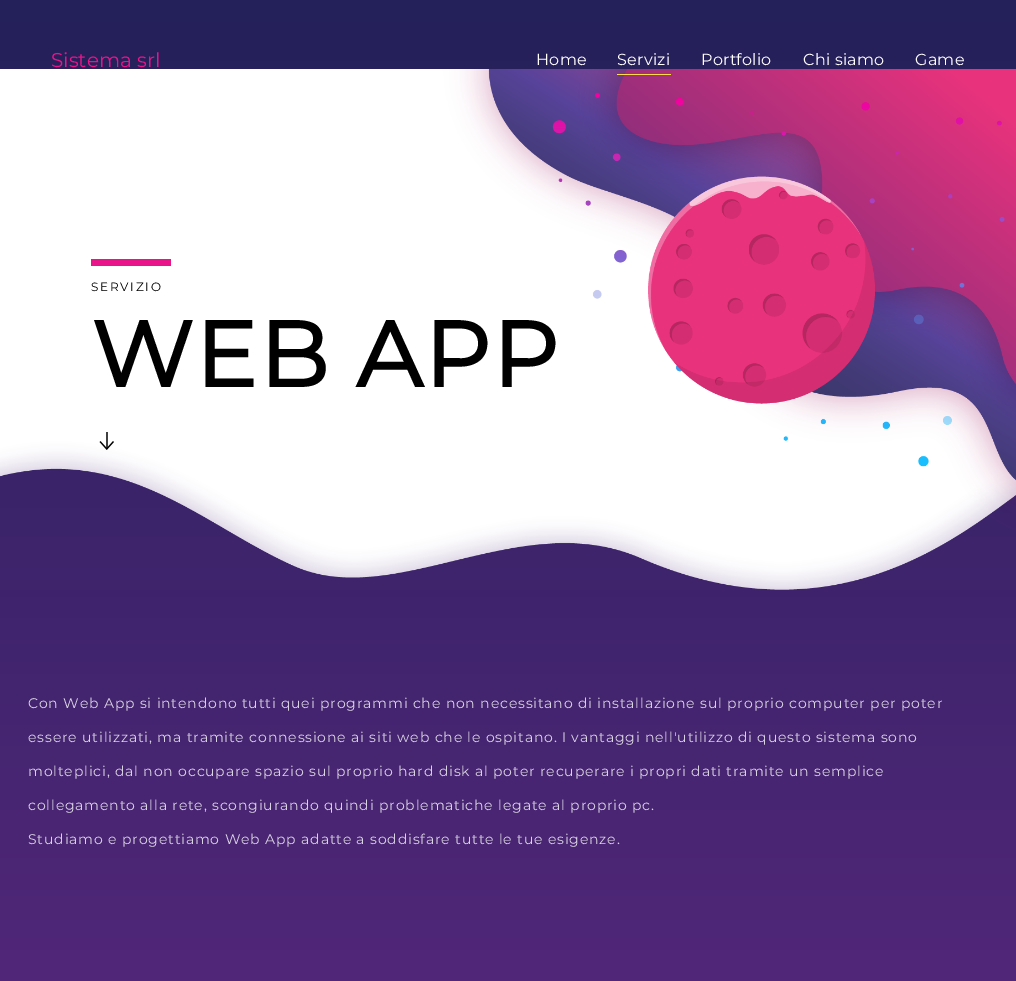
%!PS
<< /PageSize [1016 981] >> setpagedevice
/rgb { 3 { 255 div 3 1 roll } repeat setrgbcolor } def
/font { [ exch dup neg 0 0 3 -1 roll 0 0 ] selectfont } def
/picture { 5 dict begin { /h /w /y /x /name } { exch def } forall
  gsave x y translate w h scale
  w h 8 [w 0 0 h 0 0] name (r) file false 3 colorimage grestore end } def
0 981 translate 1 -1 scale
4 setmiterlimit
255 255 255 rgb
0 0 1016 981 rectfill
gsave 0 0 moveto 1016 0 lineto 1016 981 lineto 0 981 lineto closepath clip newpath
<< /ShadingType 2 /ColorSpace /DeviceRGB /Coords [508 0 508 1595] /Extend [true true] /Function << /FunctionType 2 /Domain [0 1] /C0 [0.141 0.125 0.349] /C1 [0.427 0.169 0.553] /N 1 >> >> shfill grestore
(img/1.rgb) 0 69 1016 521 picture
255 221 66 rgb
617 74 54 1 rectfill
234 20 138 rgb
91 259 80 7 rectfill
(img/2.rgb) 99 432 15 18 picture
/Montserrat-Thin 20 font
51 67 moveto (Sistema srl) show
/Montserrat-Thin 16 font
255 255 255 rgb
536 65 moveto 0.25 0 (Home) ashow
617 65 moveto 0.25 0 (Servizi) ashow
701 65 moveto 0.25 0 (Portfolio) ashow
803 65 moveto 0.25 0 (Chi siamo) ashow
915 65 moveto 0.25 0 (Game) ashow
/Montserrat-Thin 12 font
0 0 0 rgb
91 291 moveto 1.75 0 (SERVIZIO) ashow
/Montserrat-Bold 92 font
91 387 moveto 2 0 (WEB APP) ashow
/Montserrat-Thin 14 font
218 211 226 rgb
28 708 moveto 0.84 0 (Con Web App si intendono tutti quei programmi che non necessitano di installazione sul proprio computer per poter) ashow
28 742 moveto 0.84 0 (essere utilizzati, ma tramite connessione ai siti web che le ospitano. I vantaggi nell'utilizzo di questo sistema sono) ashow
28 776 moveto 0.84 0 (molteplici, dal non occupare spazio sul proprio hard disk al poter recuperare i propri dati tramite un semplice) ashow
28 810 moveto 0.84 0 (collegamento alla rete, scongiurando quindi problematiche legate al proprio pc.) ashow
28 844 moveto 0.84 0 (Studiamo e progettiamo Web App adatte a soddisfare tutte le tue esigenze.) ashow
showpage
